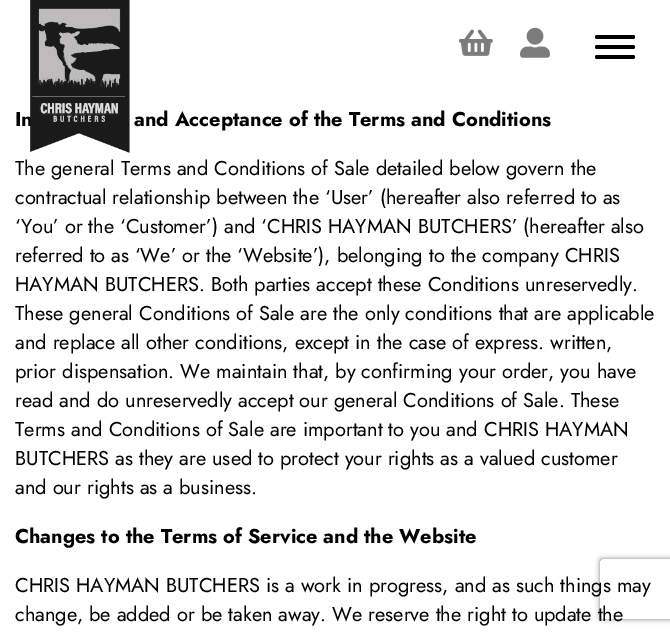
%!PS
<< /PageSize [670 633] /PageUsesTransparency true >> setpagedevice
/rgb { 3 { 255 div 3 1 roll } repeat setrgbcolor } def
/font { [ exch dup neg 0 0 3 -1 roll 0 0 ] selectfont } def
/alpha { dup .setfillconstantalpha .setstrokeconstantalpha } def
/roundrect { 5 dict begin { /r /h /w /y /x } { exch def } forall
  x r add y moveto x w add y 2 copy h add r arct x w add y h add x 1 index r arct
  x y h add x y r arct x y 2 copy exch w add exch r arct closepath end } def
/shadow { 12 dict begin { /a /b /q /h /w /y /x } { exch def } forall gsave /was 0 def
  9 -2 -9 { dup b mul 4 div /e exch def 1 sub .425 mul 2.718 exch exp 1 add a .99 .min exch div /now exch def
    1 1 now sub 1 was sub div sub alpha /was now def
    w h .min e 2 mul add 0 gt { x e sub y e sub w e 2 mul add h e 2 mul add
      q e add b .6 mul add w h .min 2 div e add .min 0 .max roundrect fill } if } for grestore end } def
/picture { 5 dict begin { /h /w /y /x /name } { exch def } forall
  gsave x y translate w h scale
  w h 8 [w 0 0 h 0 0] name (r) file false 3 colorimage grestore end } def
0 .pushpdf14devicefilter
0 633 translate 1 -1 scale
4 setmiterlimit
255 255 255 rgb
0 0 670 633 rectfill
(img/2.rgb) 459 29 34 27 picture
(img/3.rgb) 520 27 30 31 picture
0 0 0 rgb
595 45 40 4 2 roundrect fill
595 35 40 4 2 roundrect fill
595 55 40 4 2 roundrect fill
gsave
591 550 moveto 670 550 lineto 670 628 lineto 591 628 lineto closepath 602 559 moveto 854 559 lineto 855 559 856 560 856 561 curveto 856 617 lineto 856 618 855 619 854 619 curveto 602 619 lineto 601 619 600 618 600 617 curveto 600 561 lineto 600 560 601 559 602 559 curveto closepath eoclip newpath
128 128 128 rgb
600 559 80 60 2 2.5 1 shadow
grestore
/Jost-Bold 20 font
15 126 moveto (In) show
(img/1.rgb) 30 0 100 153 picture
134 126 moveto (and Acceptance of the Terms and Conditions) show
/Jost-Regular 20 font
[
  [(The general Terms and Conditions of Sale detailed below govern the) 15 175]
  [(contractual relationship between the ‘User’ \(hereafter also referred to as) 15 204]
  [(‘You’ or the ‘Customer’\) and ‘CHRIS HAYMAN BUTCHERS’ \(hereafter also) 15 233]
  [(referred to as ‘We’ or the ‘Website’\), belonging to the company CHRIS) 15 262]
  [(HAYMAN BUTCHERS. Both parties accept these Conditions unreservedly.) 15 291]
  [(These general Conditions of Sale are the only conditions that are applicable) 15 320]
  [(and replace all other conditions, except in the case of express. written,) 15 349]
  [(prior dispensation. We maintain that, by confirming your order, you have) 15 378]
  [(read and do unreservedly accept our general Conditions of Sale. These) 15 407]
  [(Terms and Conditions of Sale are important to you and CHRIS HAYMAN) 15 436]
  [(BUTCHERS as they are used to protect your rights as a valued customer) 15 465]
  [(and our rights as a business.) 15 494]
] { aload pop moveto show } forall
/Jost-Bold 20 font
15 543 moveto (Changes to the Terms of Service and the Website) show
/Jost-Regular 20 font
15 592 moveto (CHRIS HAYMAN BUTCHERS is a work in progress, and as such things may) show
15 621 moveto (change, be added or be taken away. We reserve the right to update the) show
.poppdf14devicefilter showpage
